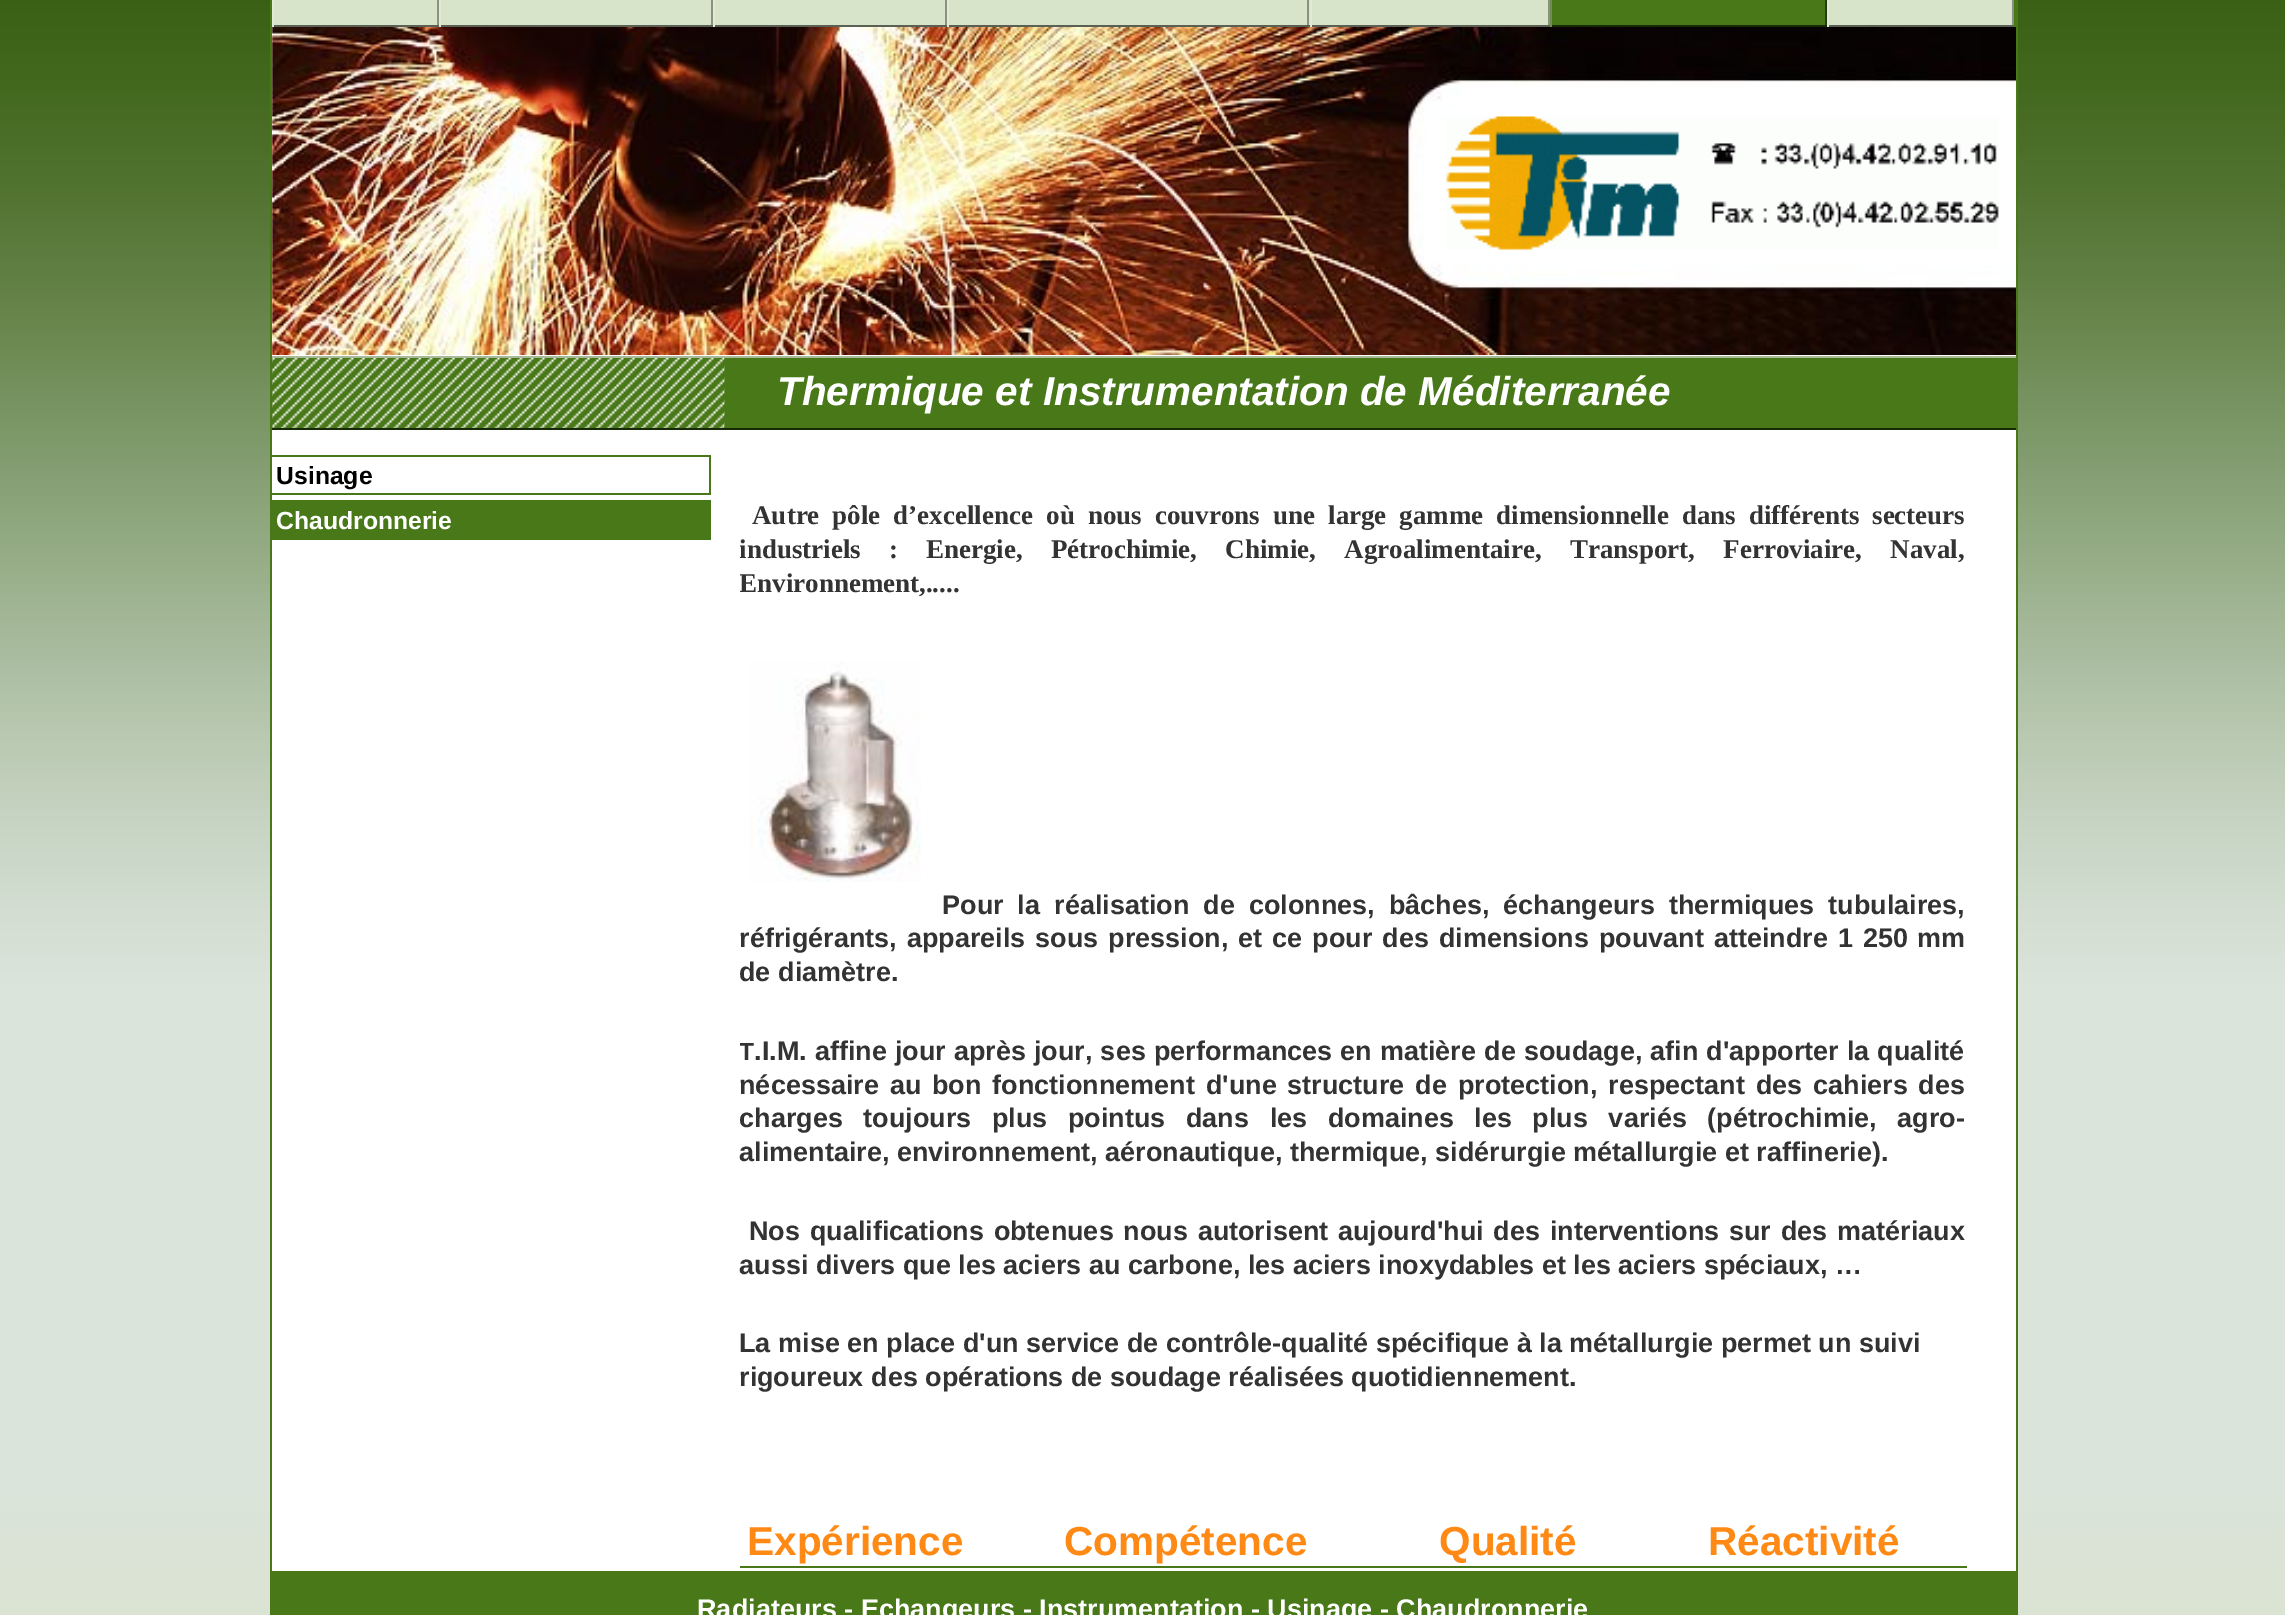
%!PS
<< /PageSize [2285 1615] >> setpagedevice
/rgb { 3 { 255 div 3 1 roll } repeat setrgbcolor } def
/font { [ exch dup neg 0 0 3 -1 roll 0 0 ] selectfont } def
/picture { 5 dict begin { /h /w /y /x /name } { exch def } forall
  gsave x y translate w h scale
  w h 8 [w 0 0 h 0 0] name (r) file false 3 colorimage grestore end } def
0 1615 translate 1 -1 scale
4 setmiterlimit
255 255 255 rgb
0 0 2285 1615 rectfill
(img/1.rgb) 0 0 2285 1615 picture
[
  [272 27 1744 1544 255 255 255]
  [2016 0 2 1615 72 120 24]
  [270 0 2 1615 72 120 24]
  [1552 0 464 27 72 120 24]
  [274 0 163 25 216 228 201]
  [437 0 2 27 137 145 128]
  [272 25 167 2 91 96 84]
  [272 0 2 27 224 234 212]
  [441 0 270 25 216 228 201]
  [711 0 2 27 137 145 128]
  [439 25 274 2 91 96 84]
  [439 0 2 27 224 234 212]
  [715 0 230 25 216 228 201]
  [945 0 2 27 137 145 128]
  [713 25 234 2 91 96 84]
  [713 0 2 27 224 234 212]
  [949 0 361 25 216 228 201]
  [1307 0 2 27 137 145 128]
  [947 25 363 2 91 96 84]
  [947 0 2 27 224 234 212]
  [1312 0 236 25 216 228 201]
  [1548 0 2 27 137 145 128]
  [1310 25 240 2 91 96 84]
  [1310 0 2 27 224 234 212]
  [1825 0 2 27 37 62 13]
  [1550 25 277 2 24 41 8]
  [1550 0 2 27 113 141 85]
  [1829 0 183 25 216 228 201]
  [2012 0 2 27 137 145 128]
  [1827 25 187 2 91 96 84]
  [1827 0 2 27 224 234 212]
] { aload pop rgb rectfill } forall
(img/2.rgb) 272 27 1744 328 picture
(img/3.rgb) 1446 116 553 134 picture
72 120 24 rgb
272 358 1744 70 rectfill
(img/4.rgb) 272 358 453 70 picture
[
  [272 356 1744 2 169 186 153]
  [272 428 1744 2 24 41 8]
  [272 455 439 2 72 120 24]
  [709 455 2 40 72 120 24]
  [272 493 439 2 72 120 24]
  [272 500 439 40 72 120 24]
] { aload pop rgb rectfill } forall
(img/5.rgb) 749 662 172 220 picture
740 1566 1227 2 rectfill
272 1571 1744 44 rectfill
/LiberationSans-BoldItalic 40.5 font
255 255 255 rgb
777 405 moveto (Thermique et Instrumentation de Méditerranée) show
/LiberationSans-Bold 24.75 font
0 0 0 rgb
276 484 moveto (Usinage) show
255 255 255 rgb
276 529 moveto (Chaudronnerie) show
/LiberationSerif-Bold 27 font
51 51 51 rgb
752 524 moveto 6.25 0 32 (Autre pôle d’excellence) widthshow
1046 524 moveto 6.25 0 32 (où nous) widthshow
1155 524 moveto 6.25 0 32 (couvrons une large gamme dimensionnelle dans différents) widthshow
1872 524 moveto (secteurs) show
gsave
740 455 1238 1113 rectclip
739 558 moveto 21.5 0 32 (industriels : Energie, Pétrochimie, Chimie, Agroalimentaire, Transport, Ferroviaire, Naval,) widthshow
739 592 moveto (Environnement,.....) show
grestore
/LiberationSans-Bold 27 font
942 914 moveto 6.5 0 32 (Pour la réalisation de colonnes, bâches, échangeurs thermiques tubulaires,) widthshow
739 947 moveto 2.5 0 32 (réfrigérants, appareils sous pression, et ce pour des dimensions pouvant atteindre 1 250) widthshow
1917 947 moveto (mm) show
739 981 moveto (de diamètre.) show
gsave
740 455 1238 1113 rectclip
/LiberationSans-Bold 24.75 font
739 1060 moveto (T) show
grestore
754 1060 moveto 0.6 0 32 (.I.M. affine jour après jour, ses performances en matière de soudage, afin d'apporter la qualité) widthshow
739 1094 moveto 3.4 0 32 (nécessaire au bon fonctionnement d'une structure de protection, respectant des cahiers des) widthshow
739 1127 moveto 13.1 0 32 (charges toujours plus pointus dans les domaines les plus variés \(pétrochimie, agro-) widthshow
739 1161 moveto (alimentaire, environnement, aéronautique, thermique, sidérurgie métallurgie et raffinerie\).) show
749 1240 moveto 2.25 0 32 (Nos qualifications obtenues nous autorisent aujourd'hui des interventions sur des matériaux) widthshow
[
  [(aussi divers que les aciers au carbone, les aciers inoxydables et les aciers spéciaux, …) 739 1274]
  [(La mise en place d'un service de contrôle-qualité spécifique à la métallurgie permet un suivi) 739 1352]
  [(rigoureux des opérations de soudage réalisées quotidiennement.) 739 1386]
] { aload pop moveto show } forall
/LiberationSans-Bold 40.5 font
255 137 21 rgb
[
  [(Expérience) 747 1555]
  [(Compétence) 1064 1555]
  [(Qualité) 1439 1555]
  [(Réactivité) 1708 1555]
] { aload pop moveto show } forall
/LiberationSans-Bold 27 font
255 255 255 rgb
697 1618 moveto (Radiateurs - Echangeurs - Instrumentation - Usinage - Chaudronnerie) show
showpage
